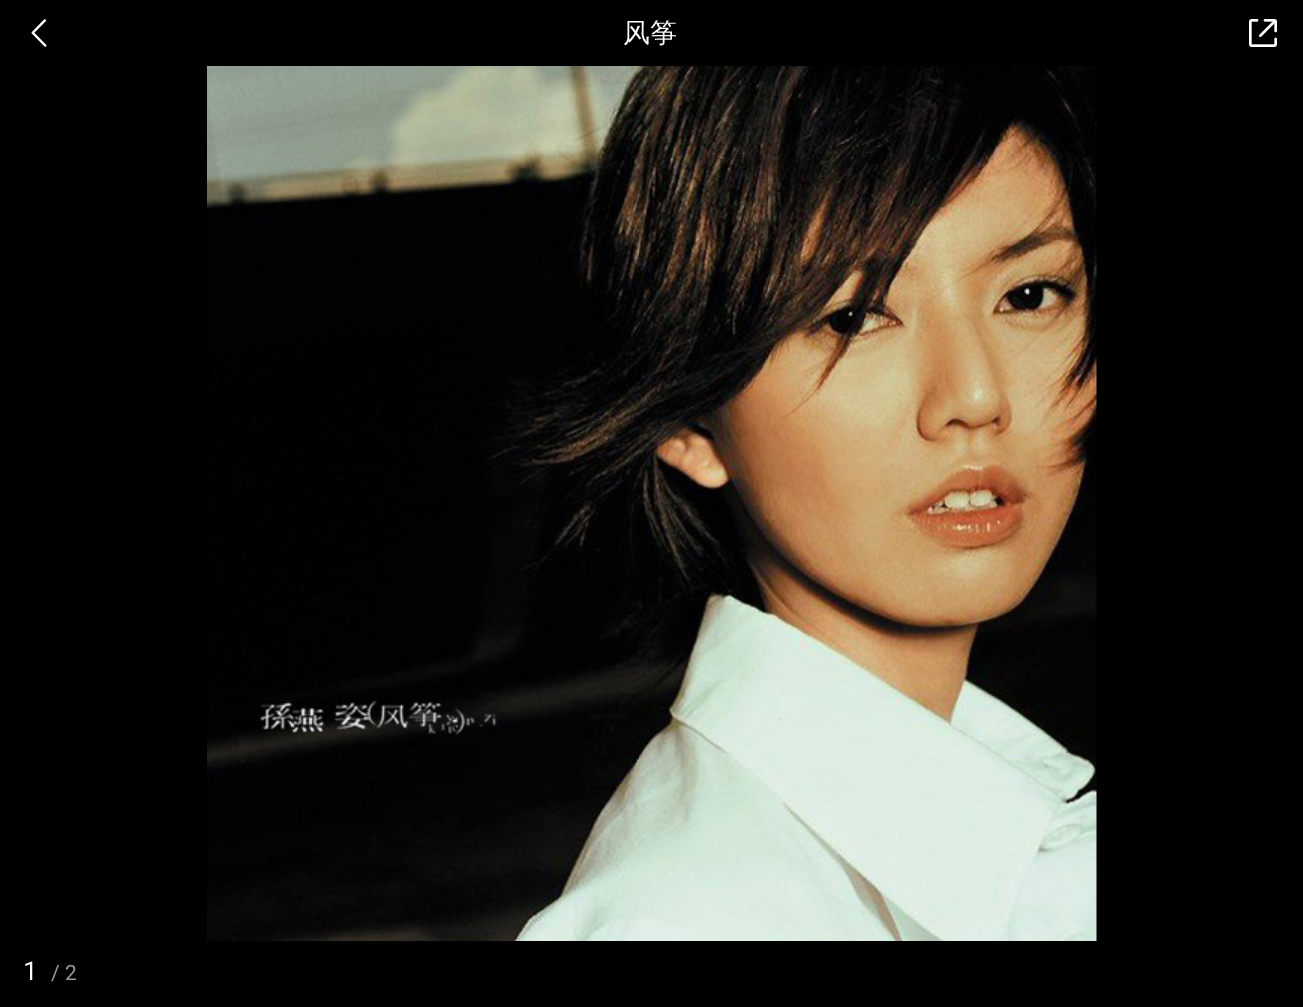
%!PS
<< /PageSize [1303 1007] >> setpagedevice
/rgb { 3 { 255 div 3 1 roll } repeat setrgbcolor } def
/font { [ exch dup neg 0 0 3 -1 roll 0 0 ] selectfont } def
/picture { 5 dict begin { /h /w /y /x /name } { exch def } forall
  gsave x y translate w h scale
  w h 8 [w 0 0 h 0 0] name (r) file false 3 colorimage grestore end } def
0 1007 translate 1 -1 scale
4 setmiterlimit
0 0 0 rgb
0 0 1303 1007 rectfill
(img/1.rgb) 31 19 16 28 picture
(img/2.rgb) 1249 19 28 28 picture
(img/3.rgb) 207 66 890 875 picture
/WenQuanYiZenHei-Medium 27 font
255 255 255 rgb
623 42 moveto (风筝) show
/Roboto-Regular 26 font
23 980 moveto (1) show
/Roboto-Regular 21 font
153 153 153 rgb
51 980 moveto (/ 2) show
showpage
